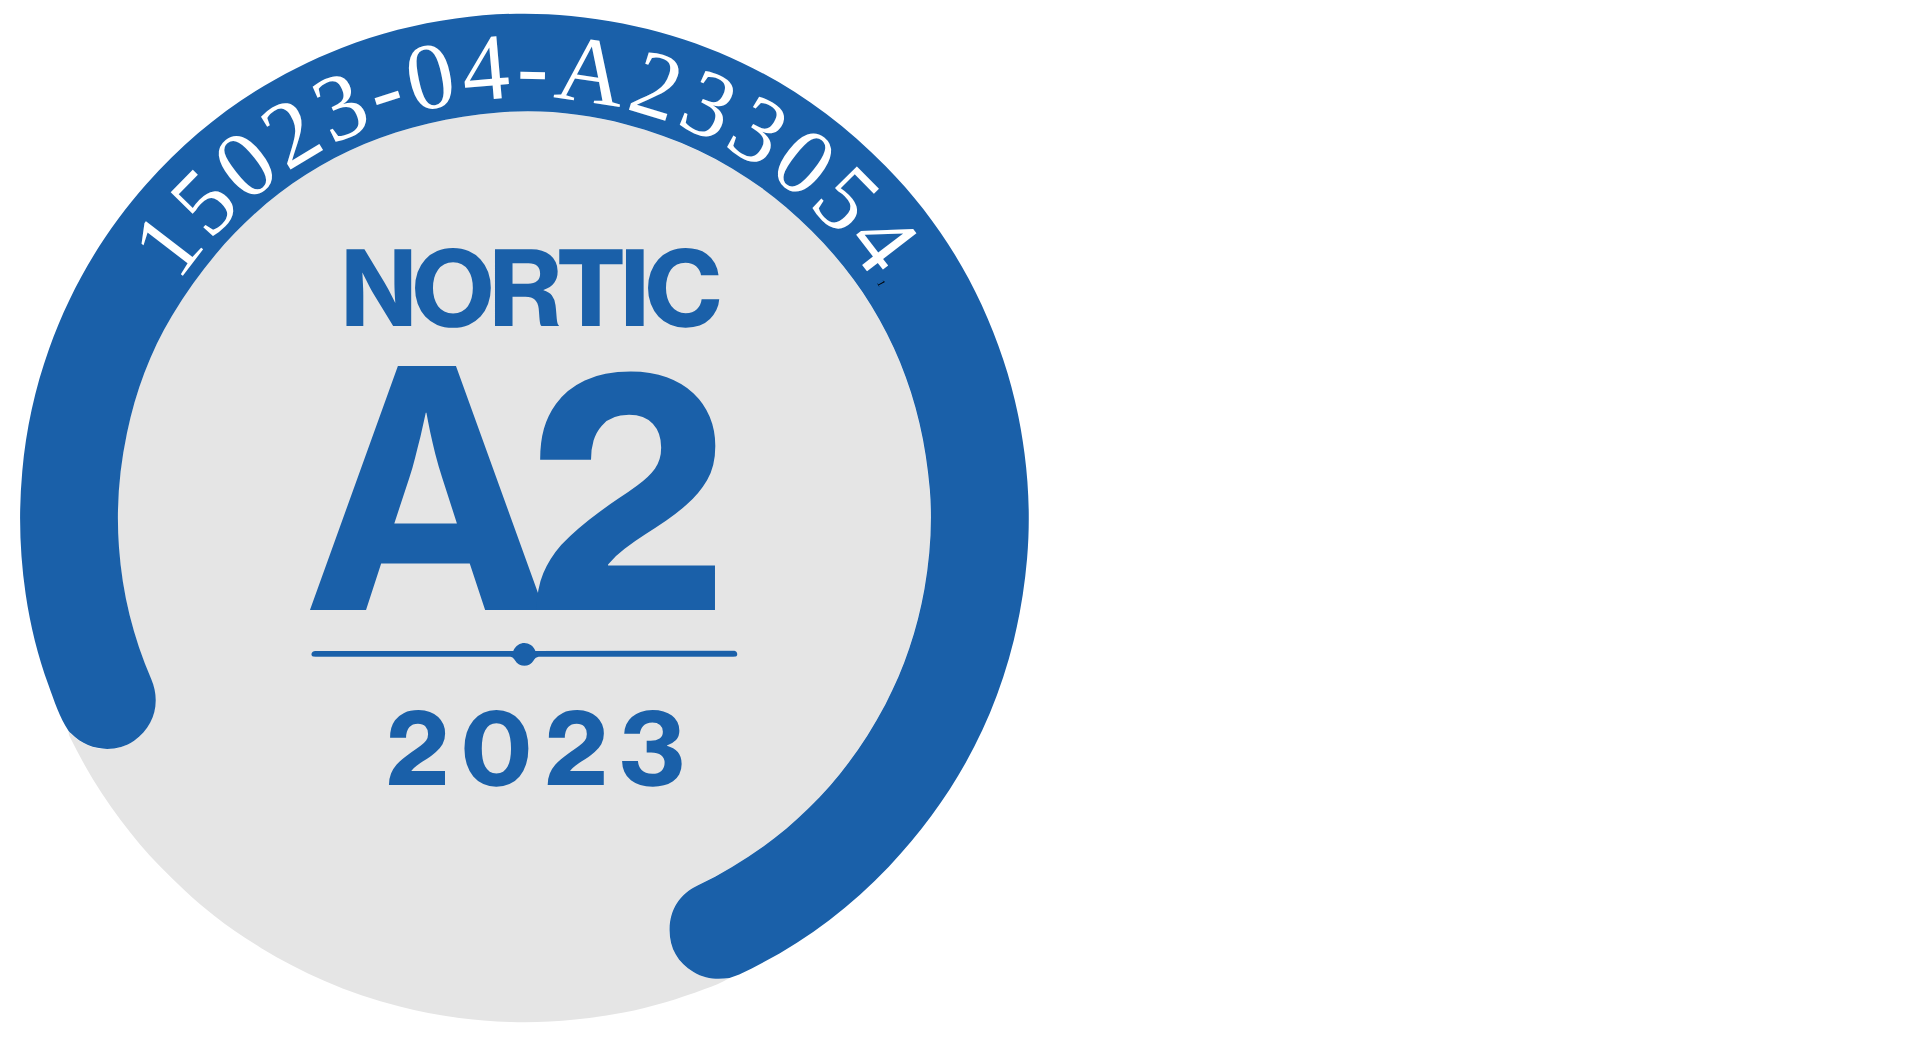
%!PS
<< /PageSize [1911 1037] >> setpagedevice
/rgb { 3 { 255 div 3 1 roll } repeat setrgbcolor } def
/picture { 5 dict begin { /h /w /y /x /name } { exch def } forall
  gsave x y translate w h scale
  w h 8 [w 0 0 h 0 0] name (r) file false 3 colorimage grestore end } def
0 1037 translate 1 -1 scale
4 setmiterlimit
255 255 255 rgb
0 0 1911 1037 rectfill
(img/1.rgb) 20 13 1009 1010 picture
showpage
